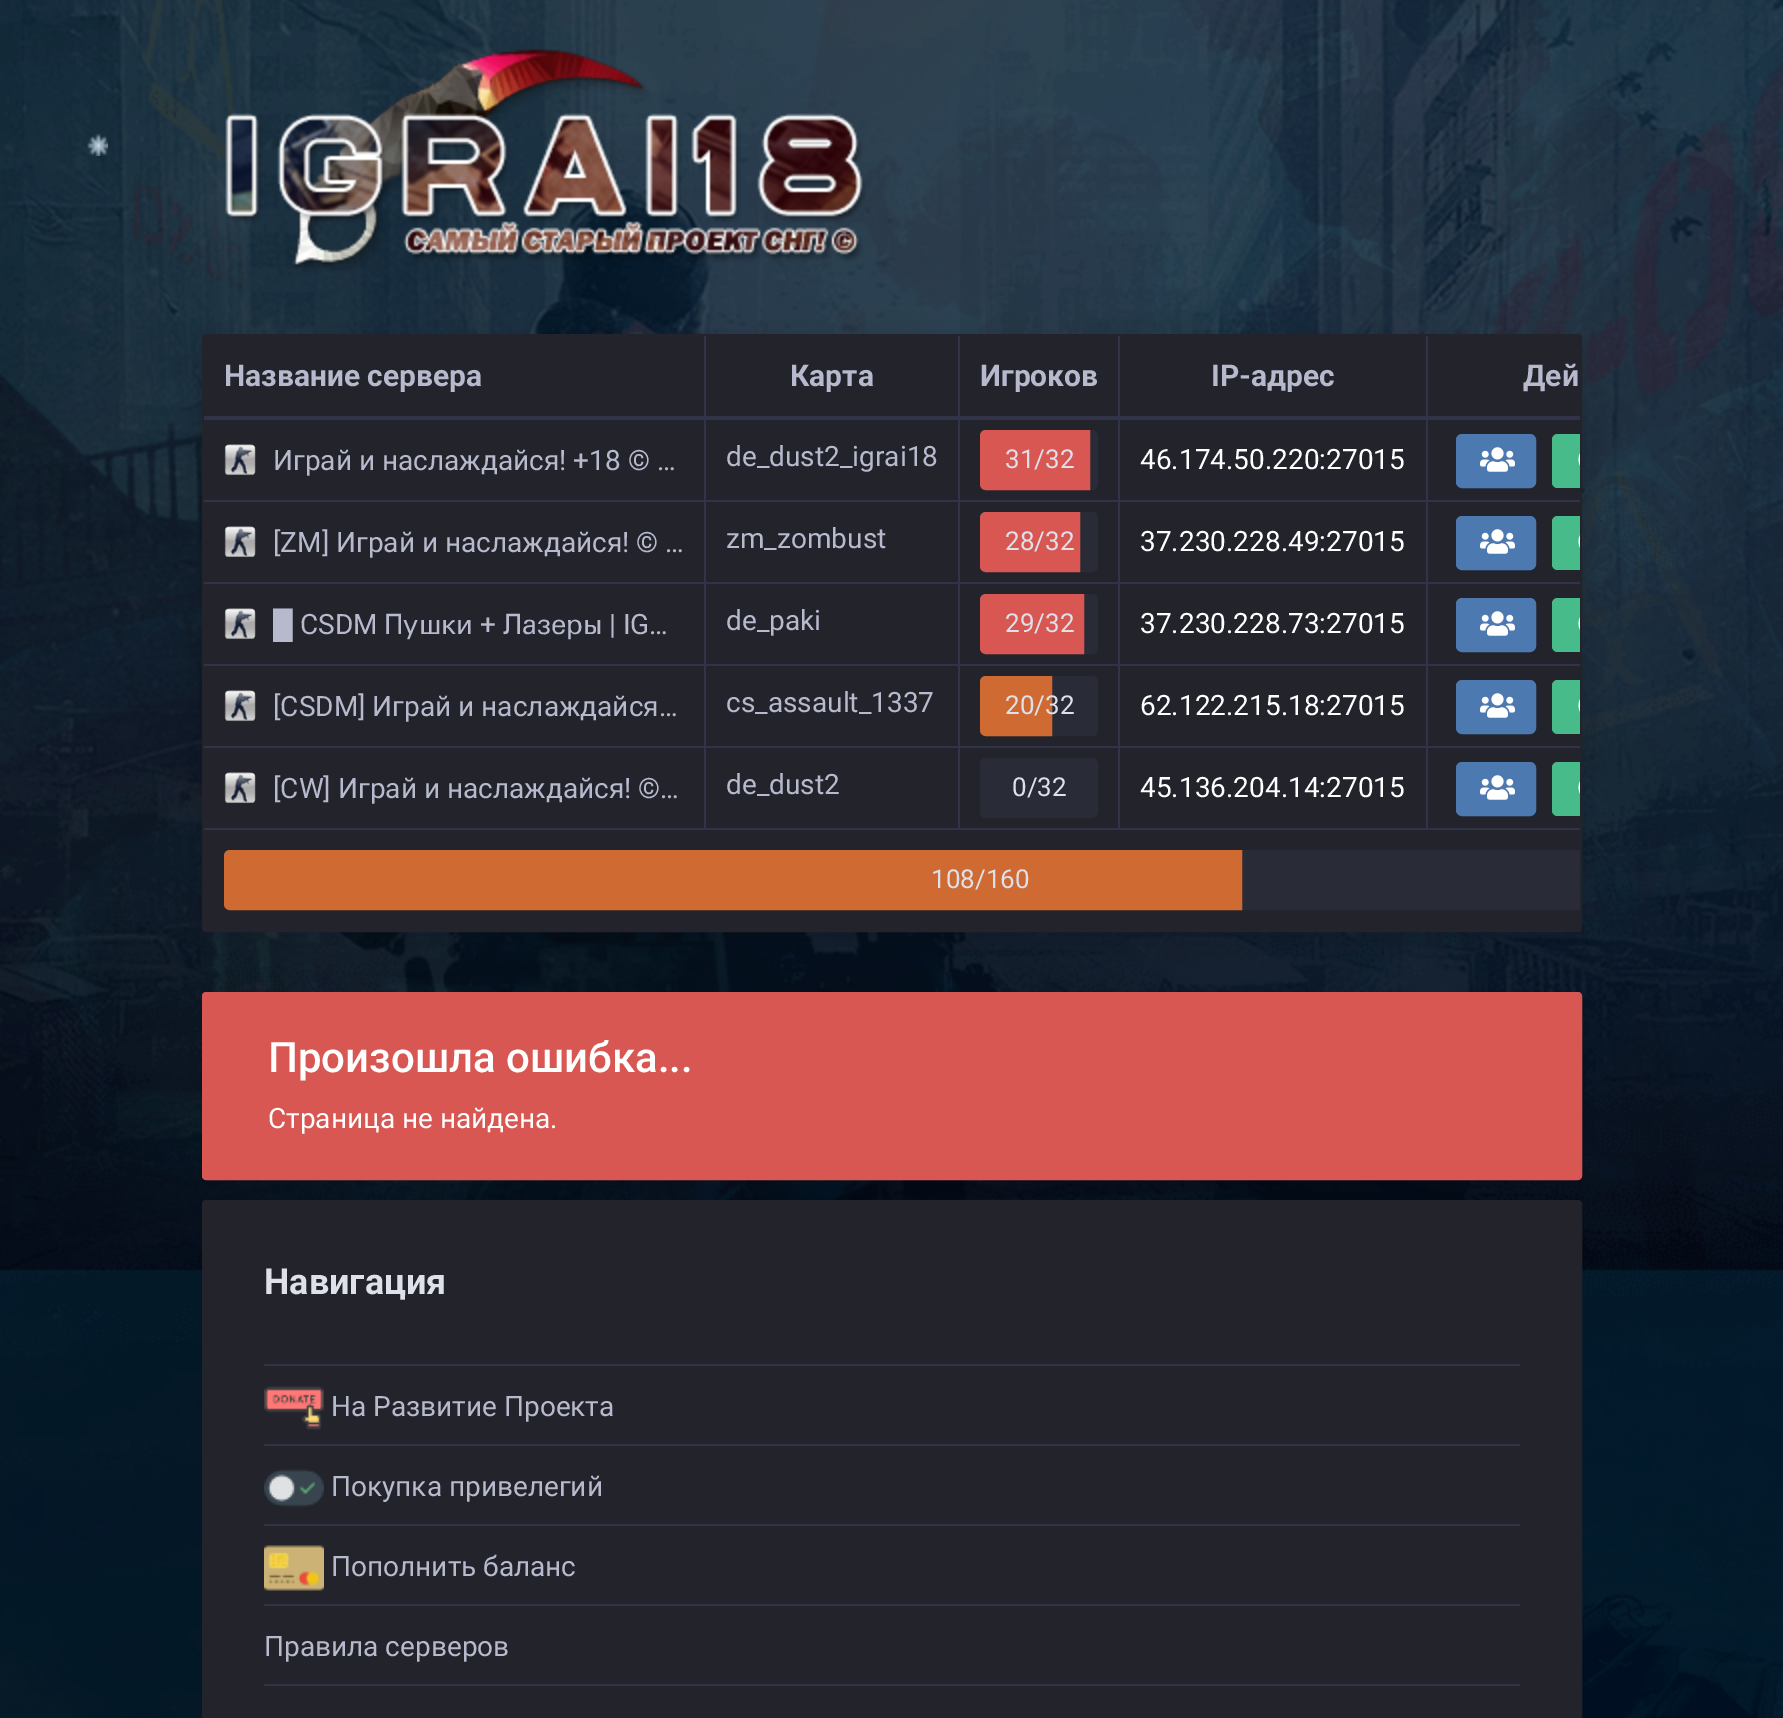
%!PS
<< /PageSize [1783 1718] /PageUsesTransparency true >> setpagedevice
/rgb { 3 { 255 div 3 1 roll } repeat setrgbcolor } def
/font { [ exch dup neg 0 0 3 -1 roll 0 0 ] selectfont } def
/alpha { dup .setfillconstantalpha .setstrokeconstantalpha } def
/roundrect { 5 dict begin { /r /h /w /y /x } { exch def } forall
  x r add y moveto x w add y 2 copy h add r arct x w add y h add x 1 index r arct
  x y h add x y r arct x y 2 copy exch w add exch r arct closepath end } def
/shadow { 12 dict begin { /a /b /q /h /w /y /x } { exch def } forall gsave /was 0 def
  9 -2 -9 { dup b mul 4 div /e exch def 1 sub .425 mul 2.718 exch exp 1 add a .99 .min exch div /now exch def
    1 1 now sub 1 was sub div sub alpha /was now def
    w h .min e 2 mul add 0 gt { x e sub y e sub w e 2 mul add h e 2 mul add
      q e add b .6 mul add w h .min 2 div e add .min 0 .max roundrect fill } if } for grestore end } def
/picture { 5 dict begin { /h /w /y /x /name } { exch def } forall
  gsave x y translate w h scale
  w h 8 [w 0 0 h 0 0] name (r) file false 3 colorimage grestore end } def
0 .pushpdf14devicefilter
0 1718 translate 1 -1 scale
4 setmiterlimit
255 255 255 rgb
0 0 1783 1718 rectfill
(img/1.rgb) 0 1470 1783 248 picture
(img/3.rgb) 0 0 1783 1470 picture
(img/2.rgb) 87 133 21 23 picture
(img/4.rgb) 225 48 641 225 picture
0 0 0 rgb
202 344 1380 598 4 19 0.15 shadow
34 35 43 rgb
203 335 1378 596 3 roundrect gsave fill grestore
2 setlinewidth
stroke
[
  [1426 500 154 2 49 52 72]
  [1426 582 154 2 49 52 72]
  [1426 664 154 2 49 52 72]
  [1426 746 154 2 49 52 72]
  [204 828 1376 2 49 52 72]
  [1426 746 2 84 49 52 72]
  [1118 746 310 2 49 52 72]
  [1426 664 2 84 49 52 72]
  [1118 664 310 2 49 52 72]
  [1426 582 2 84 49 52 72]
  [1118 582 310 2 49 52 72]
  [1426 500 2 84 49 52 72]
  [1118 500 310 2 49 52 72]
  [1118 746 2 84 49 52 72]
  [958 746 162 2 49 52 72]
  [1118 664 2 84 49 52 72]
  [958 664 162 2 49 52 72]
  [1118 582 2 84 49 52 72]
  [958 582 162 2 49 52 72]
  [1118 500 2 84 49 52 72]
  [958 500 162 2 49 52 72]
  [958 746 2 84 49 52 72]
  [704 746 256 2 49 52 72]
  [958 664 2 84 49 52 72]
  [704 664 256 2 49 52 72]
  [958 582 2 84 49 52 72]
  [704 582 256 2 49 52 72]
  [958 500 2 84 49 52 72]
  [704 500 256 2 49 52 72]
  [704 746 2 84 49 52 72]
  [204 746 502 2 49 52 72]
  [704 664 2 84 49 52 72]
  [204 664 502 2 49 52 72]
  [704 582 2 84 49 52 72]
  [204 582 502 2 49 52 72]
  [704 500 2 84 49 52 72]
  [204 500 502 2 49 52 72]
  [704 336 2 166 49 52 72]
  [958 336 2 166 49 52 72]
  [1118 336 2 166 49 52 72]
  [1426 336 2 166 49 52 72]
  [204 416 1376 4 49 52 72]
] { aload pop rgb rectfill } forall
(img/5.rgb) 224 444 32 32 picture
41 43 55 rgb
981 431 116 58 5 roundrect gsave fill grestore
stroke
216 87 82 rgb
986 431 moveto 1089 431 lineto 1089 489 lineto 986 489 lineto 983 489 981 487 981 484 curveto 981 436 lineto 981 433 983 431 986 431 curveto closepath gsave fill grestore
stroke
77 121 177 rgb
1457 435 78 52 5 roundrect gsave fill grestore
stroke
(img/6.rgb) 1480 447 35 25 picture
71 188 138 rgb
1558 434 moveto 1580 434 lineto 1580 488 lineto 1558 488 lineto 1554.5 488 1552 485.5 1552 482 curveto 1552 440 lineto 1552 436.5 1554.5 434 1558 434 curveto closepath fill
1558 434 moveto 1555 434 1552 437 1552 440 curveto 1552 482 lineto 1552 485 1555 488 1558 488 curveto 1580 488 lineto 1580 486 lineto 1558 486 lineto 1556 486 1554 484 1554 482 curveto 1554 440 lineto 1554 438 1556 436 1558 436 curveto 1580 436 lineto 1580 434 lineto closepath fill
(img/7.rgb) 1578 453 2 13 picture
(img/8.rgb) 224 526 32 32 picture
41 43 55 rgb
981 513 116 58 5 roundrect gsave fill grestore
stroke
216 87 82 rgb
986 513 moveto 1079 513 lineto 1079 571 lineto 986 571 lineto 983 571 981 569 981 566 curveto 981 518 lineto 981 515 983 513 986 513 curveto closepath gsave fill grestore
stroke
77 121 177 rgb
1457 517 78 52 5 roundrect gsave fill grestore
stroke
(img/6.rgb) 1480 529 35 25 picture
71 188 138 rgb
1558 516 moveto 1580 516 lineto 1580 570 lineto 1558 570 lineto 1554.5 570 1552 567.5 1552 564 curveto 1552 522 lineto 1552 518.5 1554.5 516 1558 516 curveto closepath fill
1558 516 moveto 1555 516 1552 519 1552 522 curveto 1552 564 lineto 1552 567 1555 570 1558 570 curveto 1580 570 lineto 1580 568 lineto 1558 568 lineto 1556 568 1554 566 1554 564 curveto 1554 522 lineto 1554 520 1556 518 1558 518 curveto 1580 518 lineto 1580 516 lineto closepath fill
(img/7.rgb) 1578 535 2 13 picture
(img/5.rgb) 224 608 32 32 picture
41 43 55 rgb
981 595 116 58 5 roundrect gsave fill grestore
stroke
216 87 82 rgb
986 595 moveto 1083 595 lineto 1083 653 lineto 986 653 lineto 983 653 981 651 981 648 curveto 981 600 lineto 981 597 983 595 986 595 curveto closepath gsave fill grestore
stroke
77 121 177 rgb
1457 599 78 52 5 roundrect gsave fill grestore
stroke
(img/6.rgb) 1480 611 35 25 picture
71 188 138 rgb
1558 598 moveto 1580 598 lineto 1580 652 lineto 1558 652 lineto 1554.5 652 1552 649.5 1552 646 curveto 1552 604 lineto 1552 600.5 1554.5 598 1558 598 curveto closepath fill
1558 598 moveto 1555 598 1552 601 1552 604 curveto 1552 646 lineto 1552 649 1555 652 1558 652 curveto 1580 652 lineto 1580 650 lineto 1558 650 lineto 1556 650 1554 648 1554 646 curveto 1554 604 lineto 1554 602 1556 600 1558 600 curveto 1580 600 lineto 1580 598 lineto closepath fill
(img/7.rgb) 1578 617 2 13 picture
(img/5.rgb) 224 690 32 32 picture
41 43 55 rgb
981 677 116 58 5 roundrect gsave fill grestore
stroke
207 106 50 rgb
986 677 moveto 1051 677 lineto 1051 735 lineto 986 735 lineto 983 735 981 733 981 730 curveto 981 682 lineto 981 679 983 677 986 677 curveto closepath gsave fill grestore
stroke
77 121 177 rgb
1457 681 78 52 5 roundrect gsave fill grestore
stroke
(img/6.rgb) 1480 693 35 25 picture
71 188 138 rgb
1558 680 moveto 1580 680 lineto 1580 734 lineto 1558 734 lineto 1554.5 734 1552 731.5 1552 728 curveto 1552 686 lineto 1552 682.5 1554.5 680 1558 680 curveto closepath fill
1558 680 moveto 1555 680 1552 683 1552 686 curveto 1552 728 lineto 1552 731 1555 734 1558 734 curveto 1580 734 lineto 1580 732 lineto 1558 732 lineto 1556 732 1554 730 1554 728 curveto 1554 686 lineto 1554 684 1556 682 1558 682 curveto 1580 682 lineto 1580 680 lineto closepath fill
(img/7.rgb) 1578 699 2 13 picture
(img/9.rgb) 224 772 32 32 picture
41 43 55 rgb
981 759 116 58 5 roundrect gsave fill grestore
stroke
77 121 177 rgb
1457 763 78 52 5 roundrect gsave fill grestore
stroke
(img/6.rgb) 1480 775 35 25 picture
71 188 138 rgb
1558 762 moveto 1580 762 lineto 1580 816 lineto 1558 816 lineto 1554.5 816 1552 813.5 1552 810 curveto 1552 768 lineto 1552 764.5 1554.5 762 1558 762 curveto closepath fill
1558 762 moveto 1555 762 1552 765 1552 768 curveto 1552 810 lineto 1552 813 1555 816 1558 816 curveto 1580 816 lineto 1580 814 lineto 1558 814 lineto 1556 814 1554 812 1554 810 curveto 1554 768 lineto 1554 766 1556 764 1558 764 curveto 1580 764 lineto 1580 762 lineto closepath fill
(img/7.rgb) 1578 781 2 13 picture
41 43 55 rgb
230 850 moveto 1580 850 lineto 1580 910 lineto 230 910 lineto 226.5 910 224 907.5 224 904 curveto 224 856 lineto 224 852.5 226.5 850 230 850 curveto closepath fill
207 106 50 rgb
230 851 moveto 1241 851 lineto 1241 909 lineto 230 909 lineto 227 909 225 907 225 904 curveto 225 856 lineto 225 853 227 851 230 851 curveto closepath gsave fill grestore
stroke
216 87 82 rgb
208 994 moveto 1578 994 lineto 1579 994 1580 995 1580 996 curveto 1580 1176 lineto 1580 1177 1579 1178 1578 1178 curveto 208 1178 lineto closepath fill
203 993 1378 186 3 roundrect stroke
204 994 4 184 rectfill
34 35 43 rgb
203 1201 1378 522 3 roundrect gsave fill grestore
stroke
49 52 72 rgb
264 1364 1256 2 rectfill
(img/10.rgb) 264 1386 60 44 picture
264 1444 1256 2 rectfill
(img/11.rgb) 264 1469 60 38 picture
264 1524 1256 2 rectfill
(img/12.rgb) 264 1545 60 46 picture
264 1604 1256 2 rectfill
264 1684 1256 2 rectfill
/Roboto-Bold 30 font
183 186 205 rgb
[
  [(Название сервера) 224 386]
  [(Карта) 790 386]
  [(Игроков) 980 386]
  [(IP-адрес) 1211 386]
  [(Дей) 1523 386]
] { aload pop moveto show } forall
/Roboto-Regular 28 font
273 470 moveto (Играй и наслаждайся! +18 © …) show
726 466 moveto (de_dust2_igrai18) show
/Roboto-Regular 26 font
222 225 233 rgb
1005 468 moveto (31/32) show
/Roboto-Regular 28 font
255 255 255 rgb
1140 469 moveto (46.174.50.220:27015) show
183 186 205 rgb
273 552 moveto ([ZM] Играй и наслаждайся! © …) show
726 548 moveto (zm_zombust) show
/Roboto-Regular 26 font
222 225 233 rgb
1005 550 moveto (28/32) show
/Roboto-Regular 28 font
255 255 255 rgb
1140 551 moveto (37.230.228.49:27015) show
gsave
224 608 460 34 rectclip
/LiberationSans-Regular 28 font
183 186 205 rgb
273 634 moveto (█) show
grestore
183 186 205 rgb
300 634 moveto (CSDM) show
/WenQuanYiZenHei-Medium 28 font
384 634 moveto (Пушки) show
/Roboto-Regular 28 font
480 634 moveto (+) show
/WenQuanYiZenHei-Medium 28 font
503 634 moveto (Лазеры) show
/Roboto-Regular 28 font
609 634 moveto (| IG…) show
726 630 moveto (de_paki) show
/Roboto-Regular 26 font
222 225 233 rgb
1005 632 moveto (29/32) show
/Roboto-Regular 28 font
255 255 255 rgb
1140 633 moveto (37.230.228.73:27015) show
183 186 205 rgb
273 716 moveto ([CSDM] Играй и наслаждайся…) show
726 712 moveto (cs_assault_1337) show
/Roboto-Regular 26 font
222 225 233 rgb
1005 714 moveto (20/32) show
/Roboto-Regular 28 font
255 255 255 rgb
1140 715 moveto (62.122.215.18:27015) show
183 186 205 rgb
273 798 moveto ([CW] Играй и наслаждайся! ©…) show
726 794 moveto (de_dust2) show
/Roboto-Regular 26 font
222 225 233 rgb
1012 796 moveto (0/32) show
/Roboto-Regular 28 font
255 255 255 rgb
1140 797 moveto (45.136.204.14:27015) show
/Roboto-Regular 26 font
222 225 233 rgb
931 888 moveto (108/160) show
/Roboto-Medium 42 font
255 255 255 rgb
268 1072 moveto (Произошла ошибка...) show
/Roboto-Regular 28 font
268 1128 moveto (Страница не найдена.) show
/Roboto-Bold 36 font
222 225 233 rgb
264 1294 moveto (Навигация) show
/Roboto-Regular 28 font
183 186 205 rgb
[
  [(На Развитие Проекта) 331 1416]
  [(Покупка привелегий) 331 1496]
  [(Пополнить баланс) 331 1576]
  [(Правила серверов) 264 1656]
] { aload pop moveto show } forall
.poppdf14devicefilter showpage
